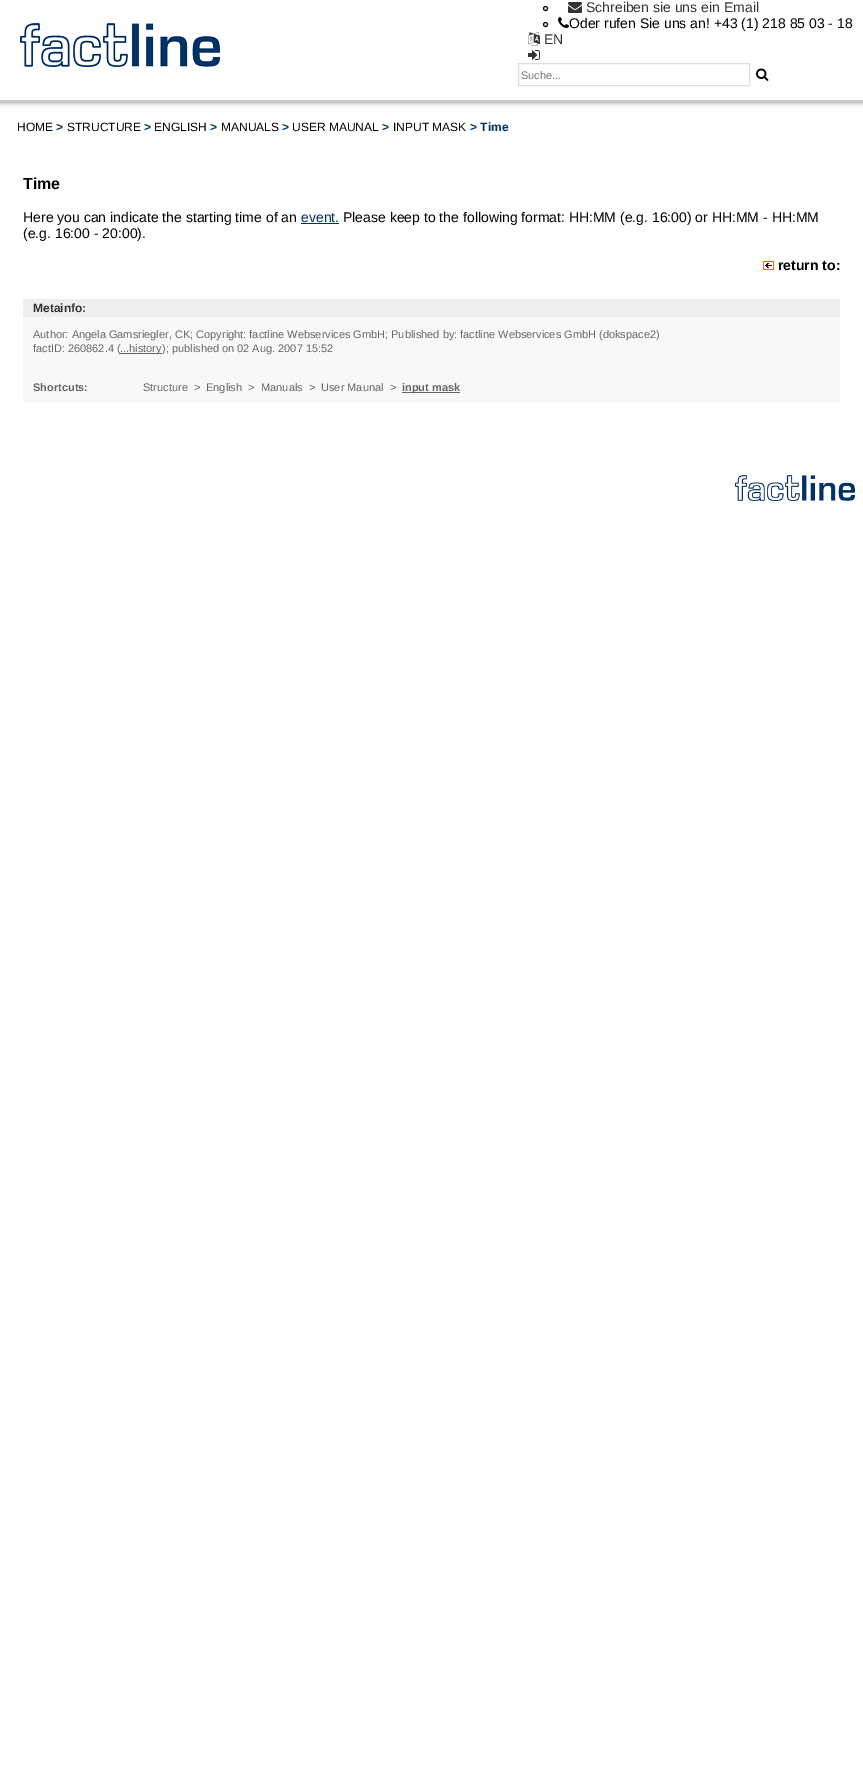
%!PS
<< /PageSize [863 1769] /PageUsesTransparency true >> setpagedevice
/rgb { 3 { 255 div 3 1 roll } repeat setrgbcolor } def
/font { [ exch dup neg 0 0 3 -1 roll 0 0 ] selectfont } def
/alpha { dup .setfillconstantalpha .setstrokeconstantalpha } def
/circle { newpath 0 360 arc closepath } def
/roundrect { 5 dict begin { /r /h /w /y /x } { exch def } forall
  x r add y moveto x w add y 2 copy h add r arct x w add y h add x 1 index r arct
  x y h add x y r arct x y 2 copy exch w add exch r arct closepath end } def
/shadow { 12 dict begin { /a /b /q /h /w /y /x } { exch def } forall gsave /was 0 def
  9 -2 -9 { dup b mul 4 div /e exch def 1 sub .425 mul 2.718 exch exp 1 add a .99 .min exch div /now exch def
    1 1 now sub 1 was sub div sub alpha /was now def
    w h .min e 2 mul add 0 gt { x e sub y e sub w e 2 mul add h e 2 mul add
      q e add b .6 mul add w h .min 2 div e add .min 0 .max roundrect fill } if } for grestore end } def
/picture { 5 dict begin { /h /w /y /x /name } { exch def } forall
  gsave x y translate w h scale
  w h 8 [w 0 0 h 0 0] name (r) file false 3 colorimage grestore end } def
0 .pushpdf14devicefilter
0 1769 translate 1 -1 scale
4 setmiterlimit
255 255 255 rgb
0 0 863 1769 rectfill
gsave
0 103 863 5 rectclip
170 170 170 rgb
0 0 863 103 0 2.5 1 shadow
grestore
199 199 199 rgb
0 100 863 3 rectfill
(img/1.rgb) 20 23 200 44 picture
0 0 0 rgb
545.5 8.5 2 circle stroke
(img/2.rgb) 568 2 14 11 picture
545.5 24.5 2 circle stroke
(img/3.rgb) 558 17 11 11 picture
(img/4.rgb) 528 32 12 14 picture
(img/5.rgb) 528 50 12 10 picture
221 221 221 rgb
518.5 63.5 231 22 rectstroke
(img/6.rgb) 756 68 13 13 picture
0 48 99 rgb
301 223 38 1 rectfill
(img/7.rgb) 763 261 11 9 picture
[
  [23 317 817 86 248 248 248]
  [23 299 817 18 238 238 238]
  [120 353 42 1 102 102 102]
  [402 392 58 1 102 102 102]
] { aload pop rgb rectfill } forall
(img/8.rgb) 735 475 120 26 picture
/LiberationSans-Regular 14 font
51 51 51 rgb
586 12 moveto (Schreiben sie uns ein Email) show
0 0 0 rgb
569 28 moveto (Oder rufen Sie uns an! +43 \(1\) 218 85 03 - 18) show
51 51 51 rgb
544 44 moveto (EN) show
/LiberationSans-Regular 11 font
117 117 117 rgb
521 79 moveto (Suche...) show
/LiberationSans-Regular 12 font
0 0 0 rgb
17 131 moveto (HOME) show
/LiberationSans-Bold 12 font
0 51 102 rgb
56 131 moveto (>) show
/LiberationSans-Regular 12 font
0 0 0 rgb
67 131 moveto (STRUCTURE) show
/LiberationSans-Bold 12 font
0 51 102 rgb
144 131 moveto (>) show
/LiberationSans-Regular 12 font
0 0 0 rgb
154 131 moveto (ENGLISH) show
/LiberationSans-Bold 12 font
0 51 102 rgb
210 131 moveto (>) show
/LiberationSans-Regular 12 font
0 0 0 rgb
221 131 moveto (MANUALS) show
/LiberationSans-Bold 12 font
0 51 102 rgb
282 131 moveto (>) show
/LiberationSans-Regular 12 font
0 0 0 rgb
292 131 moveto (USER MAUNAL) show
/LiberationSans-Bold 12 font
0 51 102 rgb
382 131 moveto (>) show
/LiberationSans-Regular 12 font
0 0 0 rgb
393 131 moveto (INPUT MASK) show
/LiberationSans-Bold 12 font
0 51 102 rgb
470 131 moveto (> Time) show
/LiberationSans-Bold 16 font
0 0 0 rgb
23 189 moveto (Time) show
/LiberationSans-Regular 14 font
23 222 moveto (Here you can indicate the starting time of an) show
0 51 102 rgb
301 222 moveto (event.) show
0 0 0 rgb
343 222 moveto (Please keep to the following format: HH:MM \(e.g. 16:00\) or HH:MM - HH:MM) show
23 238 moveto (\(e.g. 16:00 - 20:00\).) show
/LiberationSans-Bold 14 font
778 270 moveto (return to:) show
/LiberationSans-Bold 12 font
51 51 51 rgb
33 312 moveto (Metainfo:) show
/LiberationSans-Regular 11 font
102 102 102 rgb
[
  [(Author: Angela Gamsriegler, CK; Copyright: factline Webservices GmbH; Published by: factline Webservices GmbH \(dokspace2\)) 33 338]
  [(factID: 260862.4 \() 33 352]
  [(...history) 120 352]
  [(\); published on 02 Aug. 2007 15:52) 162 352]
] { aload pop moveto show } forall
/LiberationSans-Bold 11 font
33 391 moveto (Shortcuts:) show
/LiberationSans-Regular 11 font
[
  [(Structure) 143 391]
  [(>) 194 391]
  [(English) 206 391]
  [(>) 248 391]
  [(Manuals) 261 391]
  [(>) 309 391]
  [(User Maunal) 321 391]
  [(>) 390 391]
] { aload pop moveto show } forall
/LiberationSans-Bold 11 font
402 391 moveto (input mask) show
.poppdf14devicefilter showpage
